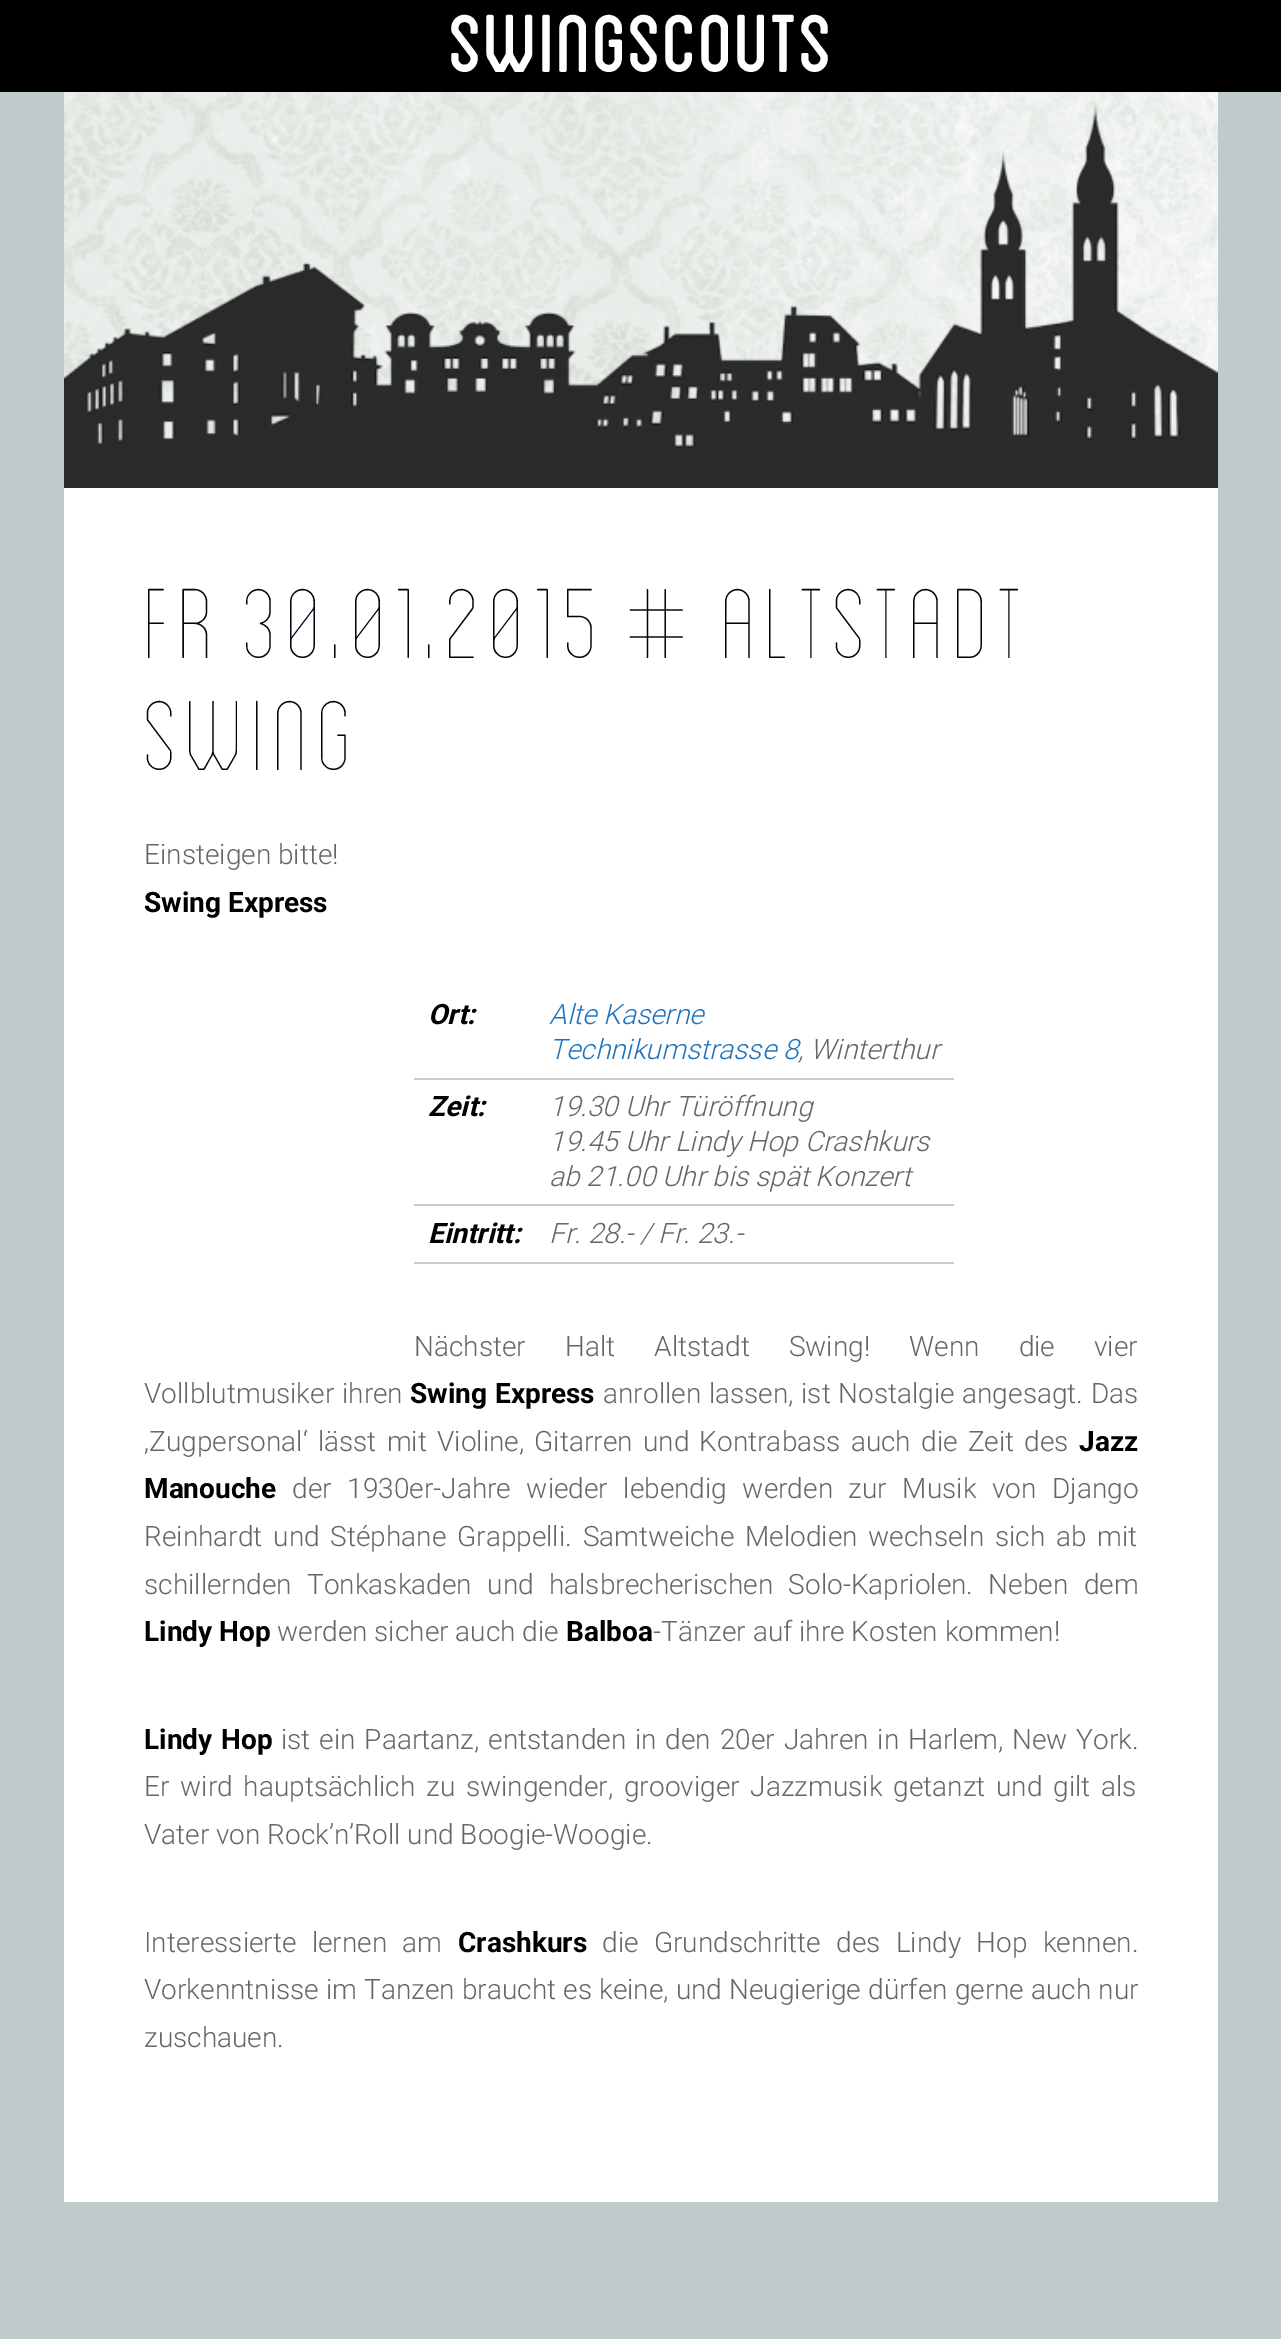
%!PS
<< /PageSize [1281 2339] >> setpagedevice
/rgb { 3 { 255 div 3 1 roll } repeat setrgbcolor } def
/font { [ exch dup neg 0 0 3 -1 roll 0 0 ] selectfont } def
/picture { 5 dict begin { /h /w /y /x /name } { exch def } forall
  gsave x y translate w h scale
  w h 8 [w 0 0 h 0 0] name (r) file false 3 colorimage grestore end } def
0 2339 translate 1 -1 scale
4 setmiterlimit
192 201 204 rgb
0 0 1281 2339 rectfill
0 0 0 rgb
0 0 1281 92 rectfill
(img/1.rgb) 64 92 1154 396 picture
[
  [64 488 1154 1714 255 255 255]
  [414 1078 540 2 204 204 204]
  [414 1204 540 2 204 204 204]
  [414 1262 540 2 204 204 204]
] { aload pop rgb rectfill } forall
/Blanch-Regular 116 font
255 255 255 rgb
449 72 moveto (Swingscouts) show
/Blanch-Light 140 font
7 2 17 rgb
144 658 moveto (FR 30.01.2015 # ALTSTADT) show
144 770 moveto (SWING) show
/Roboto-Light 28 font
102 102 102 rgb
144 864 moveto (Einsteigen bitte!) show
/Roboto-Bold 28 font
0 0 0 rgb
144 912 moveto (Swing Express) show
/Roboto-BoldItalic 28 font
428 1024 moveto (Ort:) show
/Roboto-LightItalic 28 font
30 115 190 rgb
549 1024 moveto (Alte Kaserne) show
549 1059 moveto (Technikumstrasse 8) show
102 102 102 rgb
798 1059 moveto (, Winterthur) show
/Roboto-BoldItalic 28 font
0 0 0 rgb
428 1116 moveto (Zeit:) show
/Roboto-LightItalic 28 font
102 102 102 rgb
[
  [(19.30 Uhr Türöffnung) 549 1116]
  [(19.45 Uhr Lindy Hop Crashkurs) 549 1151]
  [(ab 21.00 Uhr bis spät Konzert) 549 1186]
] { aload pop moveto show } forall
/Roboto-BoldItalic 28 font
0 0 0 rgb
428 1243 moveto (Eintritt:) show
/Roboto-LightItalic 28 font
102 102 102 rgb
549 1243 moveto (Fr. 28.- / Fr. 23.-) show
/Roboto-Light 28 font
414 1356 moveto 32.25 0 32 (Nächster Halt Altstadt Swing! Wenn die vier) widthshow
144 1403 moveto 1 0 32 (Vollblutmusiker ihren) widthshow
/Roboto-Bold 28 font
0 0 0 rgb
410 1403 moveto 1 0 32 (Swing Express) widthshow
/Roboto-Light 28 font
102 102 102 rgb
603 1403 moveto 0.75 0 32 (anrollen lassen, ist Nostalgie angesagt. Das) widthshow
144 1451 moveto 3.4 0 32 (‚Zugpersonal‘ lässt mit Violine, Gitarren und Kontrabass auch die Zeit des) widthshow
/Roboto-Bold 28 font
0 0 0 rgb
1079 1451 moveto (Jazz) show
144 1498 moveto (Manouche) show
/Roboto-Light 28 font
102 102 102 rgb
292 1498 moveto 8.75 0 32 (der 1930er-Jahre wieder lebendig werden zur Musik von Django) widthshow
144 1546 moveto 4 0 32 (Reinhardt und Stéphane Grappelli. Samtweiche Melodien wechseln sich ab mit) widthshow
144 1594 moveto 8.5 0 32 (schillernden Tonkaskaden und halsbrecherischen Solo-Kapriolen. Neben dem) widthshow
/Roboto-Bold 28 font
0 0 0 rgb
144 1641 moveto (Lindy Hop) show
/Roboto-Light 28 font
102 102 102 rgb
277 1641 moveto (werden sicher auch die) show
/Roboto-Bold 28 font
0 0 0 rgb
566 1641 moveto (Balboa) show
/Roboto-Light 28 font
102 102 102 rgb
653 1641 moveto (-Tänzer auf ihre Kosten kommen!) show
/Roboto-Bold 28 font
0 0 0 rgb
144 1749 moveto 2 0 32 (Lindy Hop) widthshow
/Roboto-Light 28 font
102 102 102 rgb
281 1749 moveto 2 0 32 (ist ein Paartanz, entstanden in den 20er Jahren in Harlem, New York.) widthshow
144 1796 moveto 4 0 32 (Er wird hauptsächlich zu swingender, grooviger Jazzmusik getanzt und gilt als) widthshow
144 1844 moveto (Vater von Rock’n’Roll und Boogie-Woogie.) show
144 1952 moveto 8.5 0 32 (Interessierte lernen am) widthshow
/Roboto-Bold 28 font
0 0 0 rgb
458 1952 moveto (Crashkurs) show
/Roboto-Light 28 font
102 102 102 rgb
602 1952 moveto 8.5 0 32 (die Grundschritte des Lindy Hop kennen.) widthshow
144 1999 moveto 0.25 0 32 (Vorkenntnisse im Tanzen braucht es keine, und Neugierige dürfen gerne auch nur) widthshow
144 2047 moveto (zuschauen.) show
showpage
